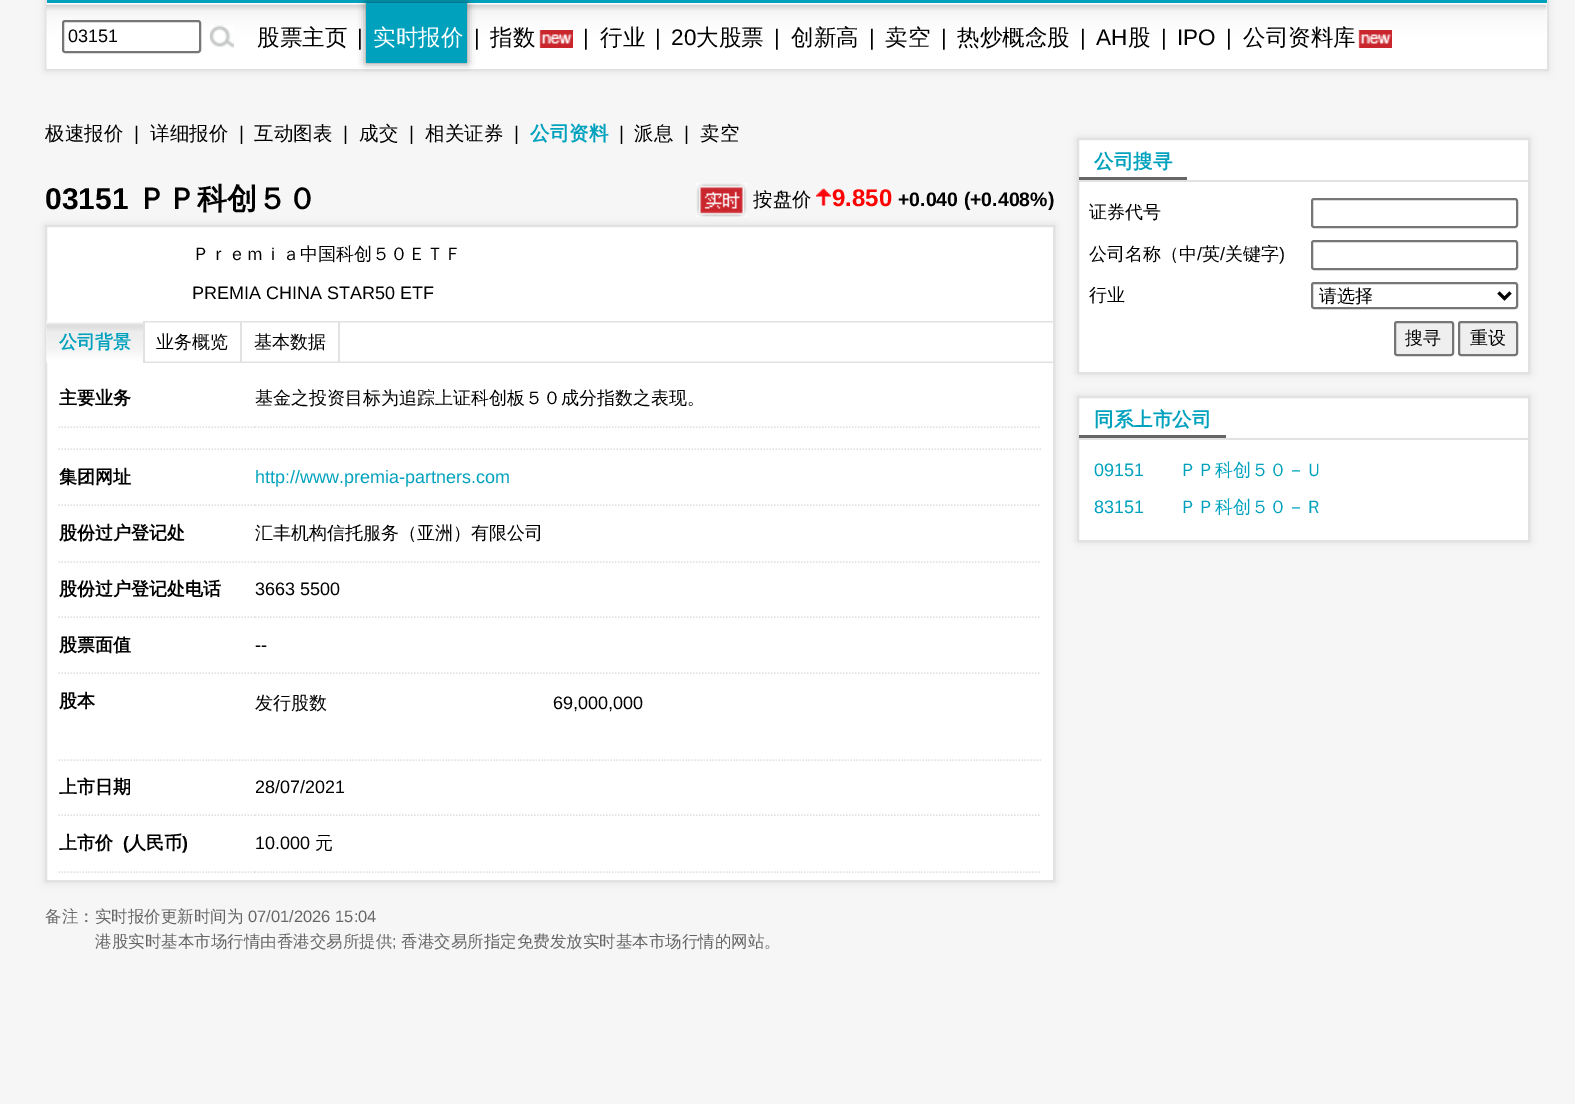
%!PS
<< /PageSize [1575 1104] /PageUsesTransparency true >> setpagedevice
/rgb { 3 { 255 div 3 1 roll } repeat setrgbcolor } def
/font { [ exch dup neg 0 0 3 -1 roll 0 0 ] selectfont } def
/alpha { dup .setfillconstantalpha .setstrokeconstantalpha } def
/roundrect { 5 dict begin { /r /h /w /y /x } { exch def } forall
  x r add y moveto x w add y 2 copy h add r arct x w add y h add x 1 index r arct
  x y h add x y r arct x y 2 copy exch w add exch r arct closepath end } def
/shadow { 12 dict begin { /a /b /q /h /w /y /x } { exch def } forall gsave /was 0 def
  9 -2 -9 { dup b mul 4 div /e exch def 1 sub .425 mul 2.718 exch exp 1 add a .99 .min exch div /now exch def
    1 1 now sub 1 was sub div sub alpha /was now def
    w h .min e 2 mul add 0 gt { x e sub y e sub w e 2 mul add h e 2 mul add
      q e add b .6 mul add w h .min 2 div e add .min 0 .max roundrect fill } if } for grestore end } def
/picture { 5 dict begin { /h /w /y /x /name } { exch def } forall
  gsave x y translate w h scale
  w h 8 [w 0 0 h 0 0] name (r) file false 3 colorimage grestore end } def
0 .pushpdf14devicefilter
0 1104 translate 1 -1 scale
4 setmiterlimit
246 246 246 rgb
0 0 1575 1104 rectfill
0 0 0 rgb
45 0 1503 71 0 4 0.1 shadow
[
  [1546 3 1 66 255 255 255]
  [1547 0 2 71 226 226 226]
  [45 69 1503 2 226 226 226]
  [45 0 2 71 226 226 226]
  [47 0 1500 3 0 161 189]
] { aload pop rgb rectfill } forall
(img/1.rgb) 46 3 1501 66 picture
255 255 255 rgb
63 21 137 31 2 roundrect gsave fill grestore
118 118 118 rgb
2 setlinewidth
stroke
(img/2.rgb) 210 25 24 23 picture
0 0 0 rgb
366 3 101 60 0 4 0.5 shadow
0 161 189 rgb
366 3 101 60 rectfill
(img/3.rgb) 539 30 34 18 picture
(img/4.rgb) 1358 30 34 18 picture
(img/5.rgb) 696 183 51 34 picture
(img/6.rgb) 816 188 15 18 picture
0 0 0 rgb
45 225 1010 657 0 4 0.1 shadow
255 255 255 rgb
46 226 moveto 1054 226 lineto 1054 881 lineto 46 881 lineto closepath gsave fill grestore
226 226 226 rgb
stroke
(img/7.rgb) 46 321 1007 42 picture
(img/8.rgb) 46 321 97 42 picture
[
  [143 321 2 42 226 226 226]
  [240 321 2 42 226 226 226]
  [338 321 2 42 226 226 226]
] { aload pop rgb rectfill } forall
1.5 setlinewidth
[1.5 1.5] 0 setdash
58.5 427 moveto 255 427 lineto stroke
255 427 moveto 1041 427 lineto stroke
58.5 449 moveto 1041 449 lineto stroke
58.5 505 moveto 255 505 lineto stroke
255 505 moveto 1041 505 lineto stroke
58.5 562 moveto 255 562 lineto stroke
255 562 moveto 1041 562 lineto stroke
58.5 617 moveto 255 617 lineto stroke
255 617 moveto 1041 617 lineto stroke
58.5 673 moveto 255 673 lineto stroke
255 673 moveto 1041 673 lineto stroke
58.5 760 moveto 1041 760 lineto stroke
58.5 815 moveto 255 815 lineto stroke
255 815 moveto 1041 815 lineto stroke
58.5 872 moveto 255 872 lineto stroke
255 872 moveto 1041 872 lineto stroke
0 0 0 rgb
1077 138 453 236 0 4 0.1 shadow
255 255 255 rgb
1078 139 moveto 1529 139 lineto 1529 373 lineto 1078 373 lineto closepath gsave fill grestore
226 226 226 rgb
2 setlinewidth
[] 0 setdash
stroke
1079 180 450 2 rectfill
102 102 102 rgb
1079 177 108 3 rectfill
118 118 118 rgb
1312 199 205 28 2 roundrect stroke
1312 241 205 28 2 roundrect stroke
1312 283 205 25 2 roundrect stroke
0 0 0 rgb
3 setlinewidth
1498.5 292.5 moveto 1504.5 298.5 lineto 1510.5 292.5 lineto stroke
239 239 239 rgb
1395 322 58 33 2 roundrect gsave fill grestore
118 118 118 rgb
2 setlinewidth
stroke
239 239 239 rgb
1459 322 58 33 2 roundrect gsave fill grestore
118 118 118 rgb
stroke
0 0 0 rgb
1077 396 453 146 0 4 0.1 shadow
255 255 255 rgb
1078 397 moveto 1529 397 lineto 1529 541 lineto 1078 541 lineto closepath gsave fill grestore
226 226 226 rgb
stroke
1079 438 450 2 rectfill
102 102 102 rgb
1079 435 147 3 rectfill
/LiberationSans-Regular 18 font
0 0 0 rgb
68 42 moveto (03151) show
/WenQuanYiZenHei-Medium 22.5 font
257 45 moveto (股票主页) show
/LiberationSans-Regular 22.5 font
357 45 moveto (|) show
/WenQuanYiZenHei-Medium 22.5 font
255 255 255 rgb
373 45 moveto (实时报价) show
/LiberationSans-Regular 22.5 font
0 0 0 rgb
474 45 moveto (|) show
/WenQuanYiZenHei-Medium 22.5 font
490 45 moveto (指数) show
/LiberationSans-Regular 22.5 font
583 45 moveto (|) show
/WenQuanYiZenHei-Medium 22.5 font
600 45 moveto (行业) show
/LiberationSans-Regular 22.5 font
655 45 moveto (|) show
671 45 moveto (20) show
/WenQuanYiZenHei-Medium 22.5 font
696 45 moveto (大股票) show
/LiberationSans-Regular 22.5 font
774 45 moveto (|) show
/WenQuanYiZenHei-Medium 22.5 font
791 45 moveto (创新高) show
/LiberationSans-Regular 22.5 font
869 45 moveto (|) show
/WenQuanYiZenHei-Medium 22.5 font
885 45 moveto (卖空) show
/LiberationSans-Regular 22.5 font
941 45 moveto (|) show
/WenQuanYiZenHei-Medium 22.5 font
957 45 moveto (热炒概念股) show
/LiberationSans-Regular 22.5 font
1080 45 moveto (|) show
1096 45 moveto (AH) show
/WenQuanYiZenHei-Medium 22.5 font
1128 45 moveto (股) show
/LiberationSans-Regular 22.5 font
[
  [(|) 1161 45]
  [(IPO) 1177 45]
  [(|) 1226 45]
] { aload pop moveto show } forall
/WenQuanYiZenHei-Medium 22.5 font
1243 45 moveto (公司资料库) show
/WenQuanYiZenHei-Medium 19.5 font
45 140 moveto (极速报价) show
/LiberationSans-Regular 19.5 font
134 140 moveto (|) show
/WenQuanYiZenHei-Medium 19.5 font
150 140 moveto (详细报价) show
/LiberationSans-Regular 19.5 font
239 140 moveto (|) show
/WenQuanYiZenHei-Medium 19.5 font
254 140 moveto (互动图表) show
/LiberationSans-Regular 19.5 font
343 140 moveto (|) show
/WenQuanYiZenHei-Medium 19.5 font
359 140 moveto (成交) show
/LiberationSans-Regular 19.5 font
409 140 moveto (|) show
/WenQuanYiZenHei-Medium 19.5 font
425 140 moveto (相关证券) show
/LiberationSans-Regular 19.5 font
514 140 moveto (|) show
/WenQuanYiZenHei-Bold 19.5 font
0 161 189 rgb
530 140 moveto (公司资料) show
/LiberationSans-Regular 19.5 font
0 0 0 rgb
619 140 moveto (|) show
/WenQuanYiZenHei-Medium 19.5 font
634 140 moveto (派息) show
/LiberationSans-Regular 19.5 font
684 140 moveto (|) show
/WenQuanYiZenHei-Medium 19.5 font
700 140 moveto (卖空) show
/LiberationSans-Bold 30 font
45 209 moveto (03151) show
/WenQuanYiZenHei-Bold 30 font
137 209 moveto (ＰＰ科创５０) show
/WenQuanYiZenHei-Medium 19.5 font
753 206 moveto (按盘价) show
/LiberationSans-Bold 24 font
255 0 0 rgb
832 206 moveto (9.850) show
/LiberationSans-Bold 19.5 font
0 0 0 rgb
898 206 moveto (+0.040 \(+0.408%\)) show
/WenQuanYiZenHei-Medium 18 font
192 260 moveto (Ｐｒｅｍｉａ中国科创５０ＥＴＦ) show
/LiberationSans-Regular 18 font
192 299 moveto (PREMIA CHINA STAR50 ETF) show
/WenQuanYiZenHei-Bold 18 font
0 161 189 rgb
59 348 moveto (公司背景) show
/WenQuanYiZenHei-Medium 18 font
0 0 0 rgb
156 348 moveto (业务概览) show
254 348 moveto (基本数据) show
/WenQuanYiZenHei-Bold 18 font
59 404 moveto (主要业务) show
/WenQuanYiZenHei-Medium 18 font
255 404 moveto (基金之投资目标为追踪上证科创板５０成分指数之表现。) show
/WenQuanYiZenHei-Bold 18 font
59 483 moveto (集团网址) show
/LiberationSans-Regular 18 font
0 161 189 rgb
255 483 moveto (http://www.premia-partners.com) show
/WenQuanYiZenHei-Bold 18 font
0 0 0 rgb
59 539 moveto (股份过户登记处) show
/WenQuanYiZenHei-Medium 18 font
255 539 moveto (汇丰机构信托服务（亚洲）有限公司) show
/WenQuanYiZenHei-Bold 18 font
59 595 moveto (股份过户登记处电话) show
/LiberationSans-Regular 18 font
255 595 moveto (3663 5500) show
/WenQuanYiZenHei-Bold 18 font
59 651 moveto (股票面值) show
/LiberationSans-Regular 18 font
255 651 moveto (--) show
/WenQuanYiZenHei-Bold 18 font
59 707 moveto (股本) show
/WenQuanYiZenHei-Medium 18 font
255 709 moveto (发行股数) show
/LiberationSans-Regular 18 font
553 709 moveto (69,000,000) show
/WenQuanYiZenHei-Bold 18 font
59 793 moveto (上市日期) show
/LiberationSans-Regular 18 font
255 793 moveto (28/07/2021) show
/WenQuanYiZenHei-Bold 18 font
59 849 moveto (上市价) show
/LiberationSans-Bold 18 font
123 849 moveto (\() show
/WenQuanYiZenHei-Bold 18 font
128 849 moveto (人民币) show
/LiberationSans-Bold 18 font
182 849 moveto (\)) show
/LiberationSans-Regular 18 font
255 849 moveto (10.000) show
/WenQuanYiZenHei-Medium 18 font
315 849 moveto (元) show
/WenQuanYiZenHei-Medium 16.5 font
102 102 102 rgb
45 922 moveto (备注：实时报价更新时间为) show
/LiberationSans-Regular 16.5 font
248 922 moveto (07/01/2026 15:04) show
/WenQuanYiZenHei-Medium 16.5 font
95 947 moveto (港股实时基本市场行情由香港交易所提供) show
/LiberationSans-Regular 16.5 font
392 947 moveto (;) show
/WenQuanYiZenHei-Medium 16.5 font
401 947 moveto (香港交易所指定免费发放实时基本市场行情的网站。) show
/WenQuanYiZenHei-Bold 19.5 font
0 161 189 rgb
1094 168 moveto (公司搜寻) show
/WenQuanYiZenHei-Medium 18 font
0 0 0 rgb
1089 218 moveto (证券代号) show
1089 260 moveto (公司名称（中) show
/LiberationSans-Regular 18 font
1197 260 moveto (/) show
/WenQuanYiZenHei-Medium 18 font
1202 260 moveto (英) show
/LiberationSans-Regular 18 font
1220 260 moveto (/) show
/WenQuanYiZenHei-Medium 18 font
1225 260 moveto (关键字) show
/LiberationSans-Regular 18 font
1279 260 moveto (\)) show
/WenQuanYiZenHei-Medium 18 font
[
  [(行业) 1089 301]
  [(请选择) 1319 302]
  [(搜寻) 1405 344]
  [(重设) 1470 344]
] { aload pop moveto show } forall
/WenQuanYiZenHei-Bold 19.5 font
0 161 189 rgb
1094 426 moveto (同系上市公司) show
/LiberationSans-Regular 18 font
1094 476 moveto (09151) show
/WenQuanYiZenHei-Medium 18 font
1179 476 moveto (ＰＰ科创５０－Ｕ) show
/LiberationSans-Regular 18 font
1094 513 moveto (83151) show
/WenQuanYiZenHei-Medium 18 font
1179 513 moveto (ＰＰ科创５０－Ｒ) show
.poppdf14devicefilter showpage
